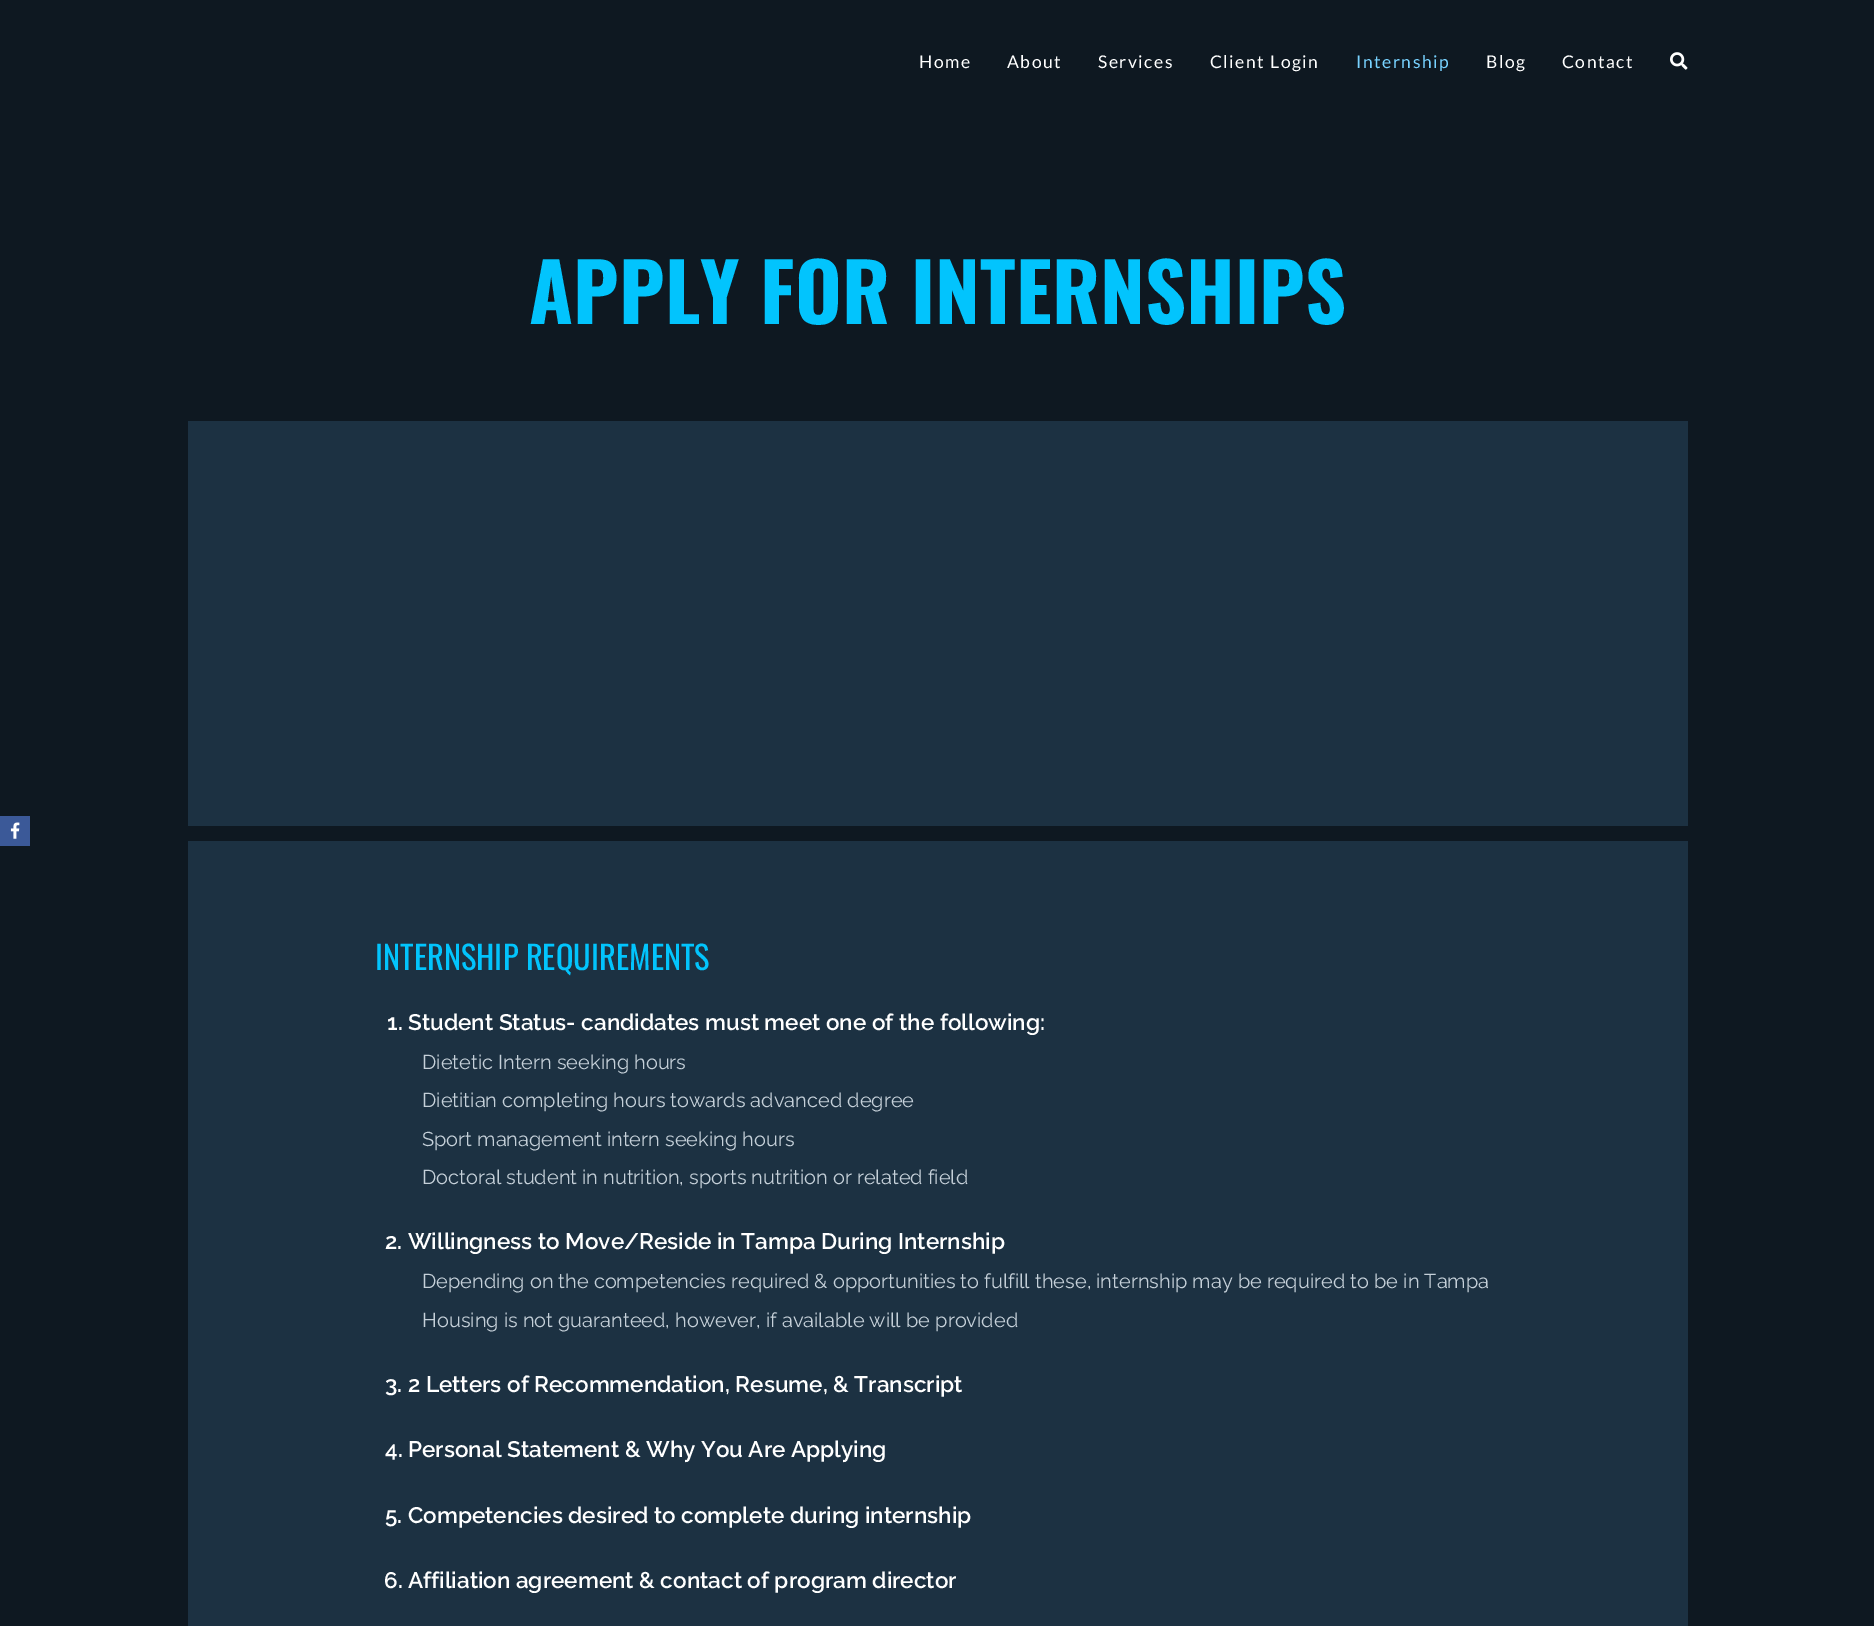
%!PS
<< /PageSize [1874 1626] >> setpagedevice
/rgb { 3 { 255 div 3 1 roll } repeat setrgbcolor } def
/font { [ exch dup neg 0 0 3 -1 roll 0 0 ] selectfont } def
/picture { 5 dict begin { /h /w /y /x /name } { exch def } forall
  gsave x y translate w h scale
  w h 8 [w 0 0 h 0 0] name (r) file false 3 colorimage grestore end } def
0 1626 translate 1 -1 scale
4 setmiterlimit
14 24 33 rgb
0 0 1874 1626 rectfill
59 89 152 rgb
0 816 30 30 rectfill
(img/1.rgb) 10 822 10 17 picture
(img/2.rgb) 1670 52 18 18 picture
28 49 66 rgb
188 421 1500 405 rectfill
188 841 1500 785 rectfill
/Lato-Regular 17.5 font
255 255 255 rgb
919 68 moveto 1.5 0 (Home) ashow
1007 68 moveto 1.5 0 (About) ashow
1098 68 moveto 1.5 0 (Services) ashow
1210 68 moveto 1.5 0 (Client Login) ashow
120 210 255 rgb
1356 68 moveto 1.5 0 (Internship) ashow
255 255 255 rgb
1486 68 moveto 1.5 0 (Blog) ashow
1562 68 moveto 1.5 0 (Contact) ashow
/Oswald-Bold 80 font
2 196 253 rgb
529 324 moveto 0.1 0 (APPLY FOR INTERNSHIPS) ashow
/Oswald-Regular 32.5 font
375 970 moveto (INTERNSHIP REQUIREMENTS) show
/Raleway-SemiBold 22.5 font
255 255 255 rgb
387 1030 moveto (1. Student Status- candidates must meet one of the following:) show
/Raleway-Regular 20 font
197 208 217 rgb
[
  [(Dietetic Intern seeking hours) 422 1069]
  [(Dietitian completing hours towards advanced degree) 422 1107]
  [(Sport management intern seeking hours) 422 1146]
  [(Doctoral student in nutrition, sports nutrition or related field) 422 1184]
] { aload pop moveto show } forall
/Raleway-SemiBold 22.5 font
255 255 255 rgb
385 1249 moveto (2. Willingness to Move/Reside in Tampa During Internship) show
/Raleway-Regular 20 font
197 208 217 rgb
422 1288 moveto (Depending on the competencies required & opportunities to fulfill these, internship may be required to be in Tampa) show
422 1327 moveto (Housing is not guaranteed, however, if available will be provided) show
/Raleway-SemiBold 22.5 font
255 255 255 rgb
[
  [(3. 2 Letters of Recommendation, Resume, & Transcript) 385 1392]
  [(4. Personal Statement & Why You Are Applying) 385 1457]
  [(5. Competencies desired to complete during internship) 385 1523]
  [(6. Affiliation agreement & contact of program director) 384 1588]
] { aload pop moveto show } forall
showpage
